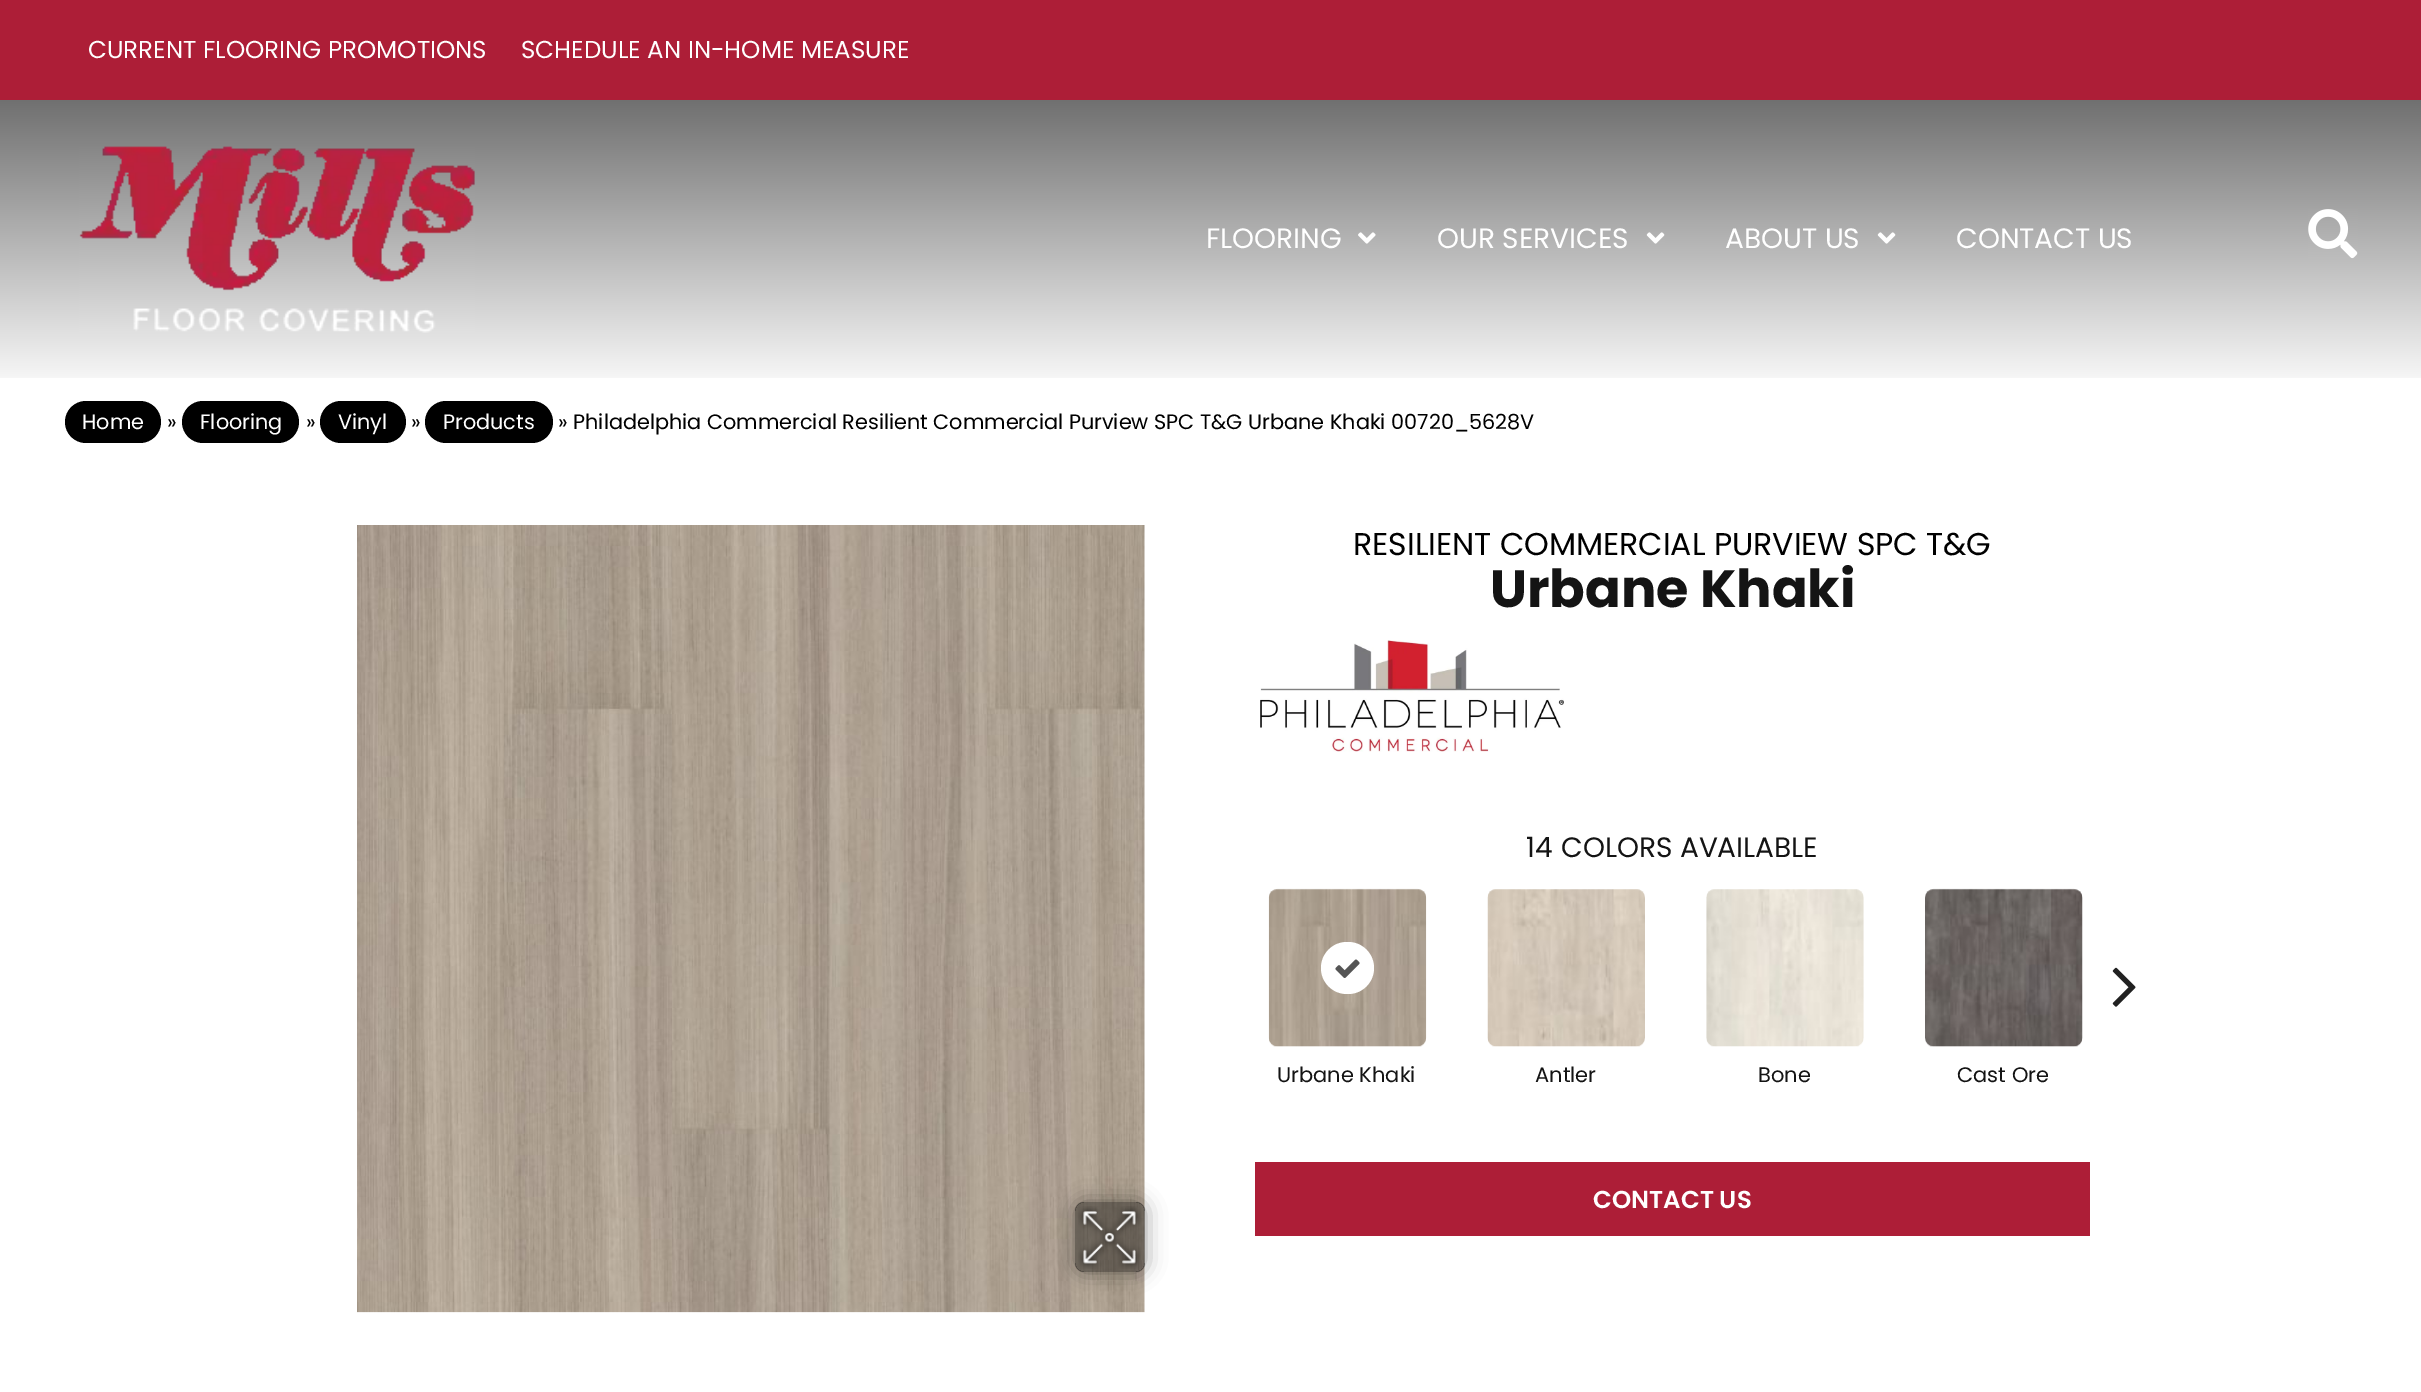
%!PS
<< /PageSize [2421 1392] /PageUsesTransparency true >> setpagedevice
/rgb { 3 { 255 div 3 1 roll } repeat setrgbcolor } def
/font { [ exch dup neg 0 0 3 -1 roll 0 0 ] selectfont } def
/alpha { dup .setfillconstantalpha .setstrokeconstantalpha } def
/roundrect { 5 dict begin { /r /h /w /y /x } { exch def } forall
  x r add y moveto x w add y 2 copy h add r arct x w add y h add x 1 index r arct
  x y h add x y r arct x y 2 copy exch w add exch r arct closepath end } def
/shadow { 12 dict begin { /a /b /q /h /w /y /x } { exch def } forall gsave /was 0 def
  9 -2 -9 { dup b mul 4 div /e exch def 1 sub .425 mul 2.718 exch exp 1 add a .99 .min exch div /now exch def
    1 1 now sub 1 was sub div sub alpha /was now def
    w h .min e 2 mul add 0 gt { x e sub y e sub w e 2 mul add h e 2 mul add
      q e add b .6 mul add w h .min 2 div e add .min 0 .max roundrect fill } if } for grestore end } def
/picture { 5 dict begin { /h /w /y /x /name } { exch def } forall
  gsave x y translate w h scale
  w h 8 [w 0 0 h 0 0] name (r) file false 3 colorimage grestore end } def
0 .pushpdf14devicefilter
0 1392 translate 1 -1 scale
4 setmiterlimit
255 255 255 rgb
0 0 2421 1392 rectfill
173 30 55 rgb
0 0 2421 100 rectfill
gsave 0 100 moveto 2421 100 lineto 2421 378 lineto 0 378 lineto closepath clip newpath
<< /ShadingType 2 /ColorSpace /DeviceRGB /Coords [1211 100 1211 378] /Extend [true true] /Function << /FunctionType 2 /Domain [0 1] /C0 [0.439 0.439 0.439] /C1 [0.965 0.965 0.965] /N 1 >> >> shfill grestore
(img/1.rgb) 79 146 396 187 picture
(img/2.rgb) 1358 232 18 12 picture
(img/3.rgb) 1646 232 19 12 picture
(img/3.rgb) 1877 232 19 12 picture
(img/4.rgb) 2308 209 50 50 picture
0 0 0 rgb
65 401 96 42 21 roundrect fill
182 401 117 42 21 roundrect fill
320 401 86 42 21 roundrect fill
425 401 128 42 21 roundrect fill
(img/5.rgb) 357 525 788 788 picture
gsave
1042 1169 moveto 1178 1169 lineto 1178 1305 lineto 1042 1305 lineto closepath 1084 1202 moveto 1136 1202 lineto 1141 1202 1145 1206 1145 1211 curveto 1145 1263 lineto 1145 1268 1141 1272 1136 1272 curveto 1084 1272 lineto 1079 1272 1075 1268 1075 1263 curveto 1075 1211 lineto 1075 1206 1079 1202 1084 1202 curveto closepath eoclip newpath
1075 1202 70 70 9 10.5 0.41 shadow
grestore
0.4 alpha
1075 1202 70 70 9 roundrect fill
1 alpha
(img/6.rgb) 1078 1206 63 63 picture
(img/7.rgb) 1260 640 304 112 picture
(img/8.rgb) 2112 967 24 40 picture
(img/9.rgb) 1268 888 159 159 picture
255 255 255 rgb
1321 942 53 52 26 roundrect fill
(img/10.rgb) 1335 959 25 19 picture
(img/11.rgb) 1487 889 158 158 picture
(img/12.rgb) 1706 889 158 158 picture
(img/13.rgb) 1925 888 158 159 picture
173 30 55 rgb
1255 1162 835 74 rectfill
/Poppins-Regular 24.5 font
255 255 255 rgb
88 58 moveto (CURRENT FLOORING PROMOTIONS) show
521 58 moveto (SCHEDULE AN IN-HOME MEASURE) show
/Poppins-Regular 28 font
[
  [(FLOORING) 1206 248]
  [(OUR SERVICES) 1437 248]
  [(ABOUT US) 1725 248]
  [(CONTACT US) 1956 248]
] { aload pop moveto show } forall
/Poppins-Regular 20.8 font
82 429 moveto (Home) show
0 0 0 rgb
167 429 moveto (») show
255 255 255 rgb
200 429 moveto (Flooring) show
0 0 0 rgb
306 429 moveto (») show
255 255 255 rgb
338 429 moveto (Vinyl) show
0 0 0 rgb
411 429 moveto (») show
255 255 255 rgb
443 429 moveto (Products) show
0 0 0 rgb
558 429 moveto (» Philadelphia Commercial Resilient Commercial Purview SPC T&G Urbane Khaki 00720_5628V) show
/Poppins-Regular 31.5 font
1353 555 moveto (RESILIENT COMMERCIAL PURVIEW SPC T&G) show
/Poppins-Bold 52.5 font
20 20 20 rgb
1490 607 moveto (Urbane Khaki) show
/Poppins-Regular 28 font
1526 857 moveto (14) show
1561 857 moveto (COLORS AVAILABLE) show
/Poppins-Regular 21 font
[
  [(Urbane Khaki) 1277 1082]
  [(Antler) 1535 1082]
  [(Bone) 1758 1082]
  [(Cast Ore) 1957 1082]
] { aload pop moveto show } forall
/Poppins-SemiBold 24.5 font
255 255 255 rgb
1593 1208 moveto (CONTACT US) show
.poppdf14devicefilter showpage
